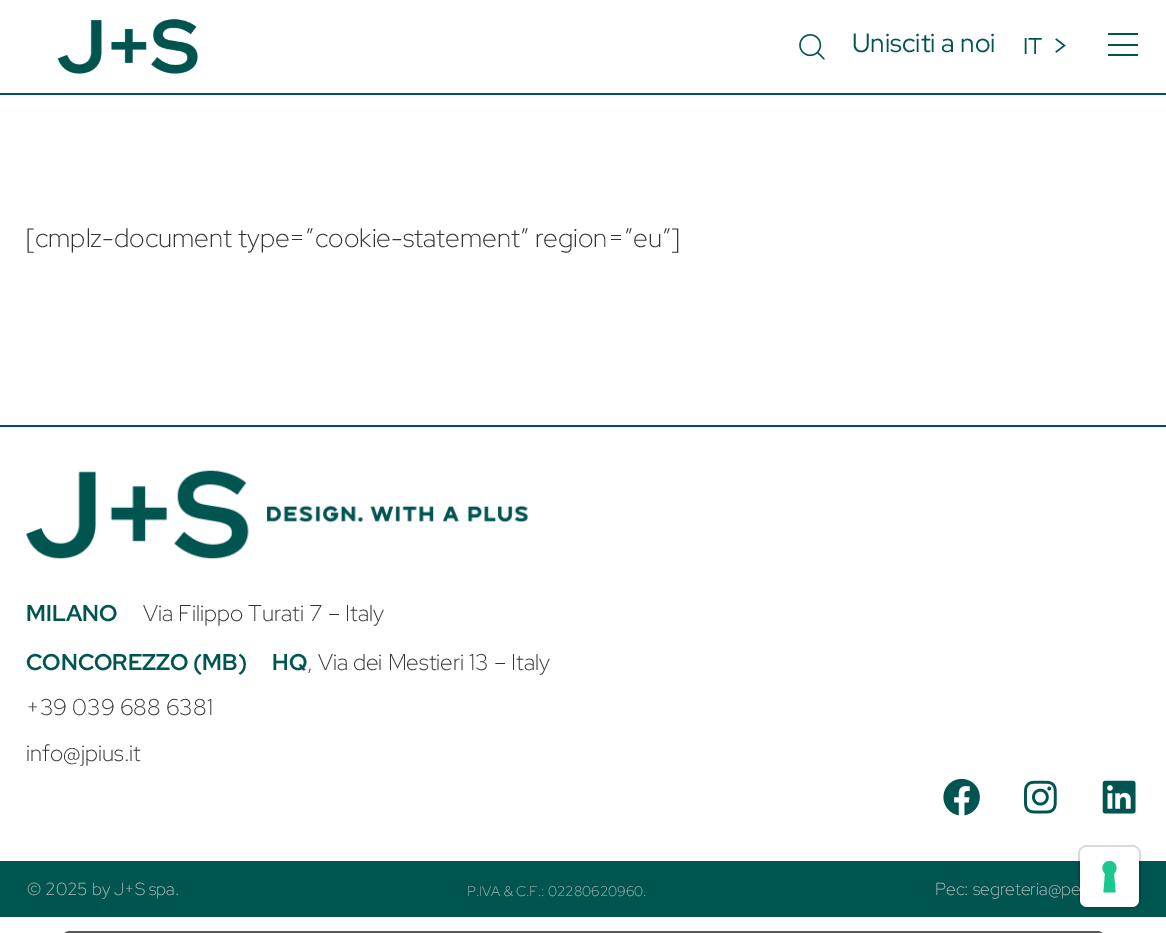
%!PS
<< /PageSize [1166 933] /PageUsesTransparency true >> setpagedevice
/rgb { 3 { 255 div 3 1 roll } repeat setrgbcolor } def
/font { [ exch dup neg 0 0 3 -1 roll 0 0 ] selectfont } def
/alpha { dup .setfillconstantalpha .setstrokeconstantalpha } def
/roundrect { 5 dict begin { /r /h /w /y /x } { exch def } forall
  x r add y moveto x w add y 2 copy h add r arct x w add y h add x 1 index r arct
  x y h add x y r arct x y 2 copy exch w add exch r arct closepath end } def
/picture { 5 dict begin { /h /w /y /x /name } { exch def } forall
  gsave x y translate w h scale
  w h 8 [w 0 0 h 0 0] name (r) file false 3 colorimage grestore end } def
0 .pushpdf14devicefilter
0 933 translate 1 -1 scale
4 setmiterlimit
255 255 255 rgb
0 0 1166 933 rectfill
0 85 80 rgb
0 93 1166 2 rectfill
(img/1.rgb) 57 19 141 55 picture
(img/2.rgb) 799 34 26 26 picture
[
  [1108 33 30 2 0 85 80]
  [1108 44 30 2 0 85 80]
  [1108 54 30 2 0 85 80]
  [0 425 1166 2 0 85 80]
] { aload pop rgb rectfill } forall
(img/3.rgb) 26 470 502 89 picture
(img/4.rgb) 943 778 37 38 picture
(img/5.rgb) 1023 780 34 34 picture
(img/6.rgb) 1102 780 34 34 picture
0 861 1166 56 rectfill
89 89 89 rgb
2 setlinewidth
62 932 1043 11 8 roundrect stroke
/RedHatDisplay-Regular 26.25 font
0 85 80 rgb
852 52 moveto (Unisciti a noi) show
/RedHatDisplay-Regular 22.75 font
1023 54 moveto (IT) show
/RedHatDisplay-Regular 30 font
1051 56 moveto (>) show
/RedHatDisplay-Light 26.6 font
52 51 51 rgb
26 247 moveto ([cmplz-document type=”cookie-statement” region=”eu”]) show
/RedHatDisplay-Bold 22.75 font
0 85 80 rgb
26 621 moveto (MILANO) show
/RedHatDisplay-Light 22.75 font
52 51 51 rgb
143 621 moveto (Via Filippo Turati 7 – Italy) show
/RedHatDisplay-Bold 22.75 font
0 85 80 rgb
26 670 moveto (CONCOREZZO \(MB\)) show
272 670 moveto (HQ) show
/RedHatDisplay-Light 22.75 font
52 51 51 rgb
[
  [(, Via dei Mestieri 13 – Italy) 307 670]
  [(+39 039 688 6381) 26 715]
  [(info@jpius.it) 26 761]
] { aload pop moveto show } forall
/RedHatDisplay-Light 17.5 font
189 189 189 rgb
27 895 moveto (© 2025 by J+S spa.) show
/RedHatDisplay-Light 14 font
467 896 moveto (P.IVA & C.F.: 02280620960.) show
/RedHatDisplay-Light 17.5 font
935 895 moveto (Pec: segreteria@pe) show
0.15 alpha
0 0 0 rgb
1079 846 61 61 8 roundrect stroke
1 alpha
255 255 255 rgb
1080 847 59 60 7 roundrect fill
28 198 145 rgb
1109.5 861 moveto 1116 861 1119 869 1114 873.5 curveto 1115.5 892.5 lineto 1103.5 892.5 lineto 1105 873.5 lineto 1100 869 1103 861 1109.5 861 curveto closepath eofill
.poppdf14devicefilter showpage
